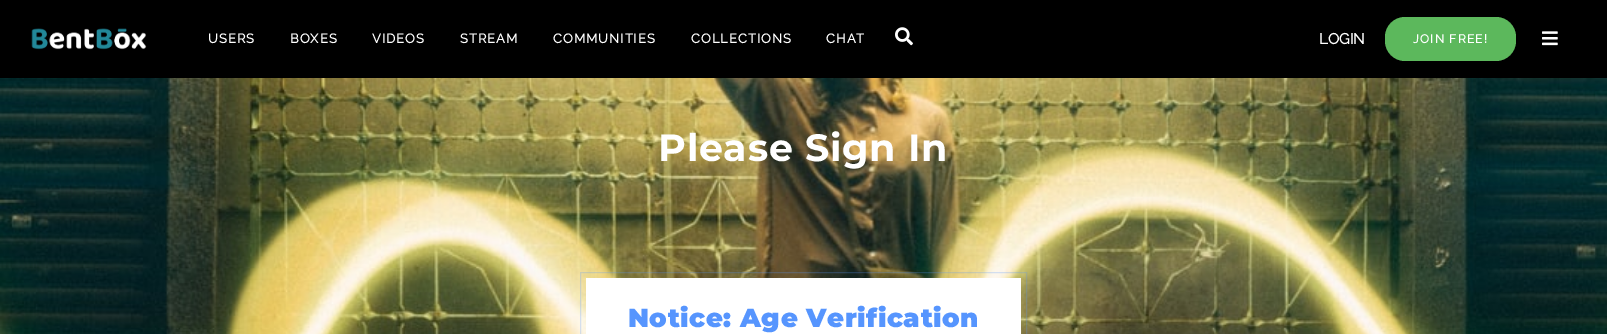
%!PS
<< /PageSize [1607 334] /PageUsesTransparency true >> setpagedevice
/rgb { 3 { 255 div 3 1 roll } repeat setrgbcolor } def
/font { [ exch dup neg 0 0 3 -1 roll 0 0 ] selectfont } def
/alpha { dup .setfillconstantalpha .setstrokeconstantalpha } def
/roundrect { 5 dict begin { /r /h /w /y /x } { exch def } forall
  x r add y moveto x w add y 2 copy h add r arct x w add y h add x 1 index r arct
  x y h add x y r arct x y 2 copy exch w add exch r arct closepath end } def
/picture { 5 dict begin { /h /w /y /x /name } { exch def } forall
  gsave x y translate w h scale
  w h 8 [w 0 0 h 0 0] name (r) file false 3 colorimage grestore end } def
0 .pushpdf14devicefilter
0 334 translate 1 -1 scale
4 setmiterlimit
255 255 255 rgb
0 0 1607 334 rectfill
(img/1.rgb) 0 78 1607 256 picture
0 0 0 rgb
0 0 1607 78 rectfill
(img/2.rgb) 31 28 116 22 picture
(img/3.rgb) 895 27 18 19 picture
92 184 92 rgb
1385 17 131 44 20 roundrect fill
(img/4.rgb) 1542 31 16 15 picture
0.25 alpha
86 149 254 rgb
580.5 272.5 446 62 rectstroke
1 alpha
255 255 255 rgb
586 278 435 56 rectfill
/Raleway-Bold 13 font
208 43 moveto 1 0 (USERS) ashow
290 43 moveto 1 0 (BOXES) ashow
372 43 moveto 1 0 (VIDEOS) ashow
460 43 moveto 1 0 (STREAM) ashow
553 43 moveto 1 0 (COMMUNITIES) ashow
691 43 moveto 1 0 (COLLECTIONS) ashow
826 43 moveto 1 0 (CHAT) ashow
/Raleway-Bold 15 font
1319 44 moveto (LOGIN) show
/Raleway-Bold 12 font
1413 43 moveto 1.25 0 (JOIN FREE!) ashow
/Montserrat-Bold 38 font
658 161 moveto 0.75 0 (Please Sign In) ashow
/Montserrat-Black 26 font
86 149 254 rgb
628 327 moveto 0.55 0 (Notice: Age Verification) ashow
.poppdf14devicefilter showpage
